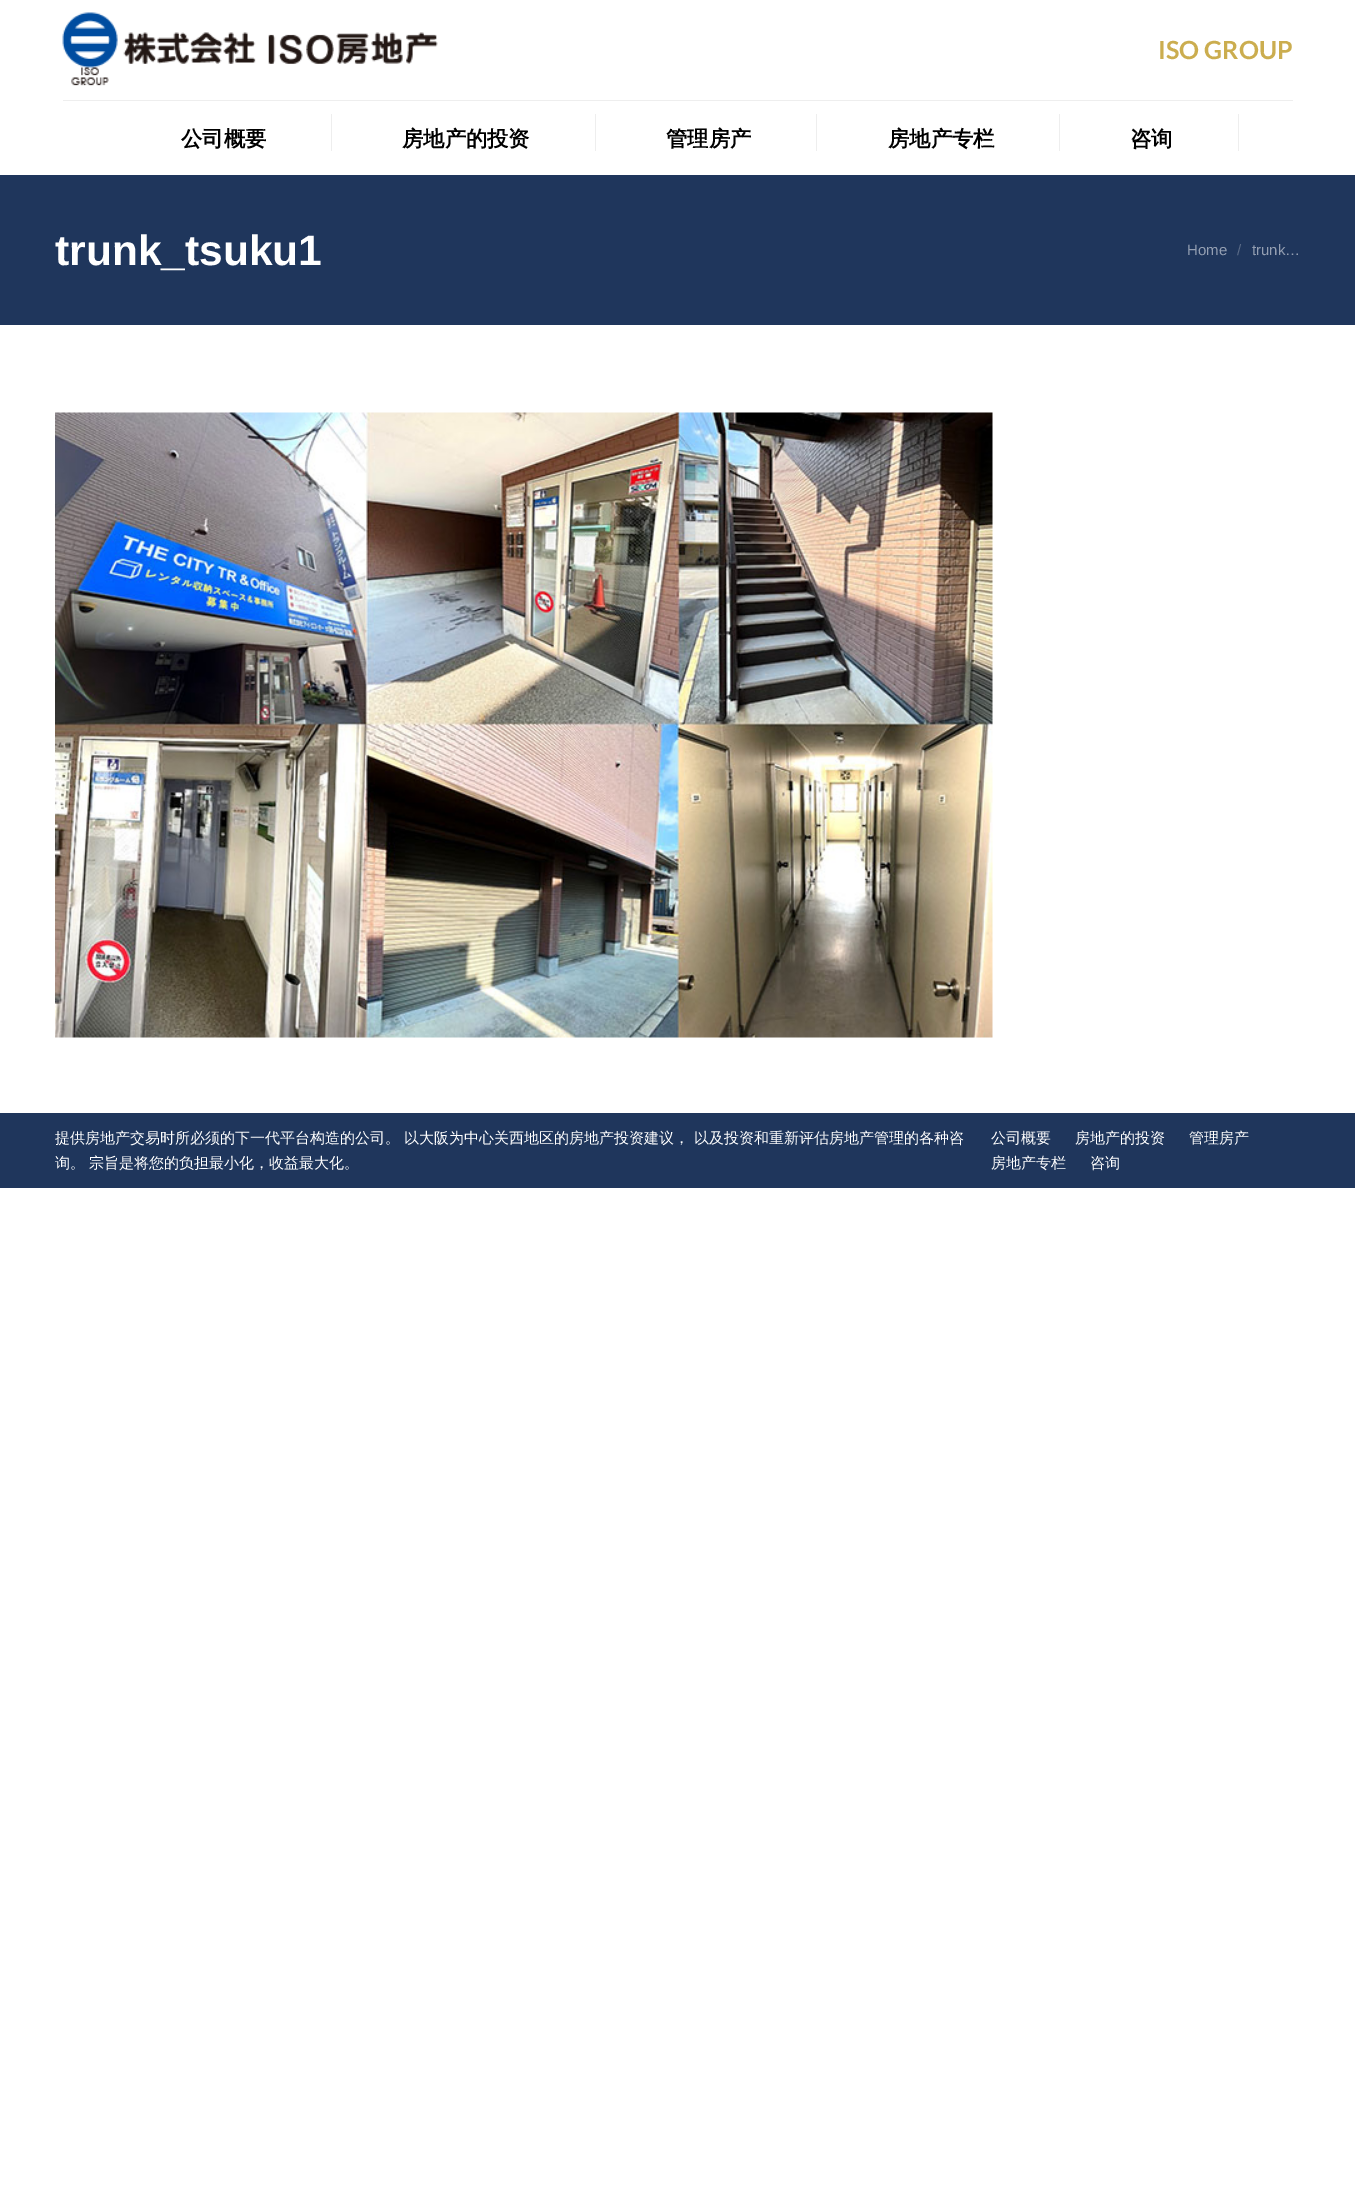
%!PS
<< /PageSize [1355 2187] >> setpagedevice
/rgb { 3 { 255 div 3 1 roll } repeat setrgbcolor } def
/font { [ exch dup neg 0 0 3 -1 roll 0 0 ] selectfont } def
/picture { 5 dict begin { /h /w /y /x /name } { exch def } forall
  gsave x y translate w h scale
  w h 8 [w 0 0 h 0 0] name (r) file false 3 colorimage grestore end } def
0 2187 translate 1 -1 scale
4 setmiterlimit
255 255 255 rgb
0 0 1355 2187 rectfill
238 238 238 rgb
63 100 1230 1 rectfill
(img/1.rgb) 62 12 376 74 picture
[
  [331 114 1 37 238 238 238]
  [595 114 1 37 238 238 238]
  [816 114 1 37 238 238 238]
  [1059 114 1 37 238 238 238]
  [1238 114 1 37 238 238 238]
  [0 175 1355 150 31 54 92]
] { aload pop rgb rectfill } forall
(img/2.rgb) 55 412 938 626 picture
0 1113 1355 75 rectfill
/Lato-Bold 25 font
203 173 79 rgb
1158 59 moveto (ISO GROUP) show
/WenQuanYiZenHei-Bold 21.25 font
0 0 0 rgb
[
  [(公司概要) 181 146]
  [(房地产的投资) 402 146]
  [(管理房产) 666 146]
  [(房地产专栏) 888 146]
  [(咨询) 1130 146]
] { aload pop moveto show } forall
/LiberationSans-Bold 42.5 font
255 255 255 rgb
55 265 moveto (trunk_tsuku1) show
/LiberationSans-Regular 15 font
148 159 178 rgb
1187 255 moveto (Home) show
90 107 135 rgb
1237 255 moveto (/) show
148 159 178 rgb
1252 255 moveto (trunk…) show
/WenQuanYiZenHei-Medium 15 font
255 255 255 rgb
[
  [(提供房地产交易时所必须的下一代平台构造的公司。 以大阪为中心关西地区的房地产投资建议， 以及投资和重新评估房地产管理的各种咨) 55 1143]
  [(询。 宗旨是将您的负担最小化，收益最大化。) 55 1168]
  [(公司概要) 991 1143]
  [(房地产的投资) 1075 1143]
  [(管理房产) 1189 1143]
  [(房地产专栏) 991 1168]
  [(咨询) 1090 1168]
] { aload pop moveto show } forall
showpage
